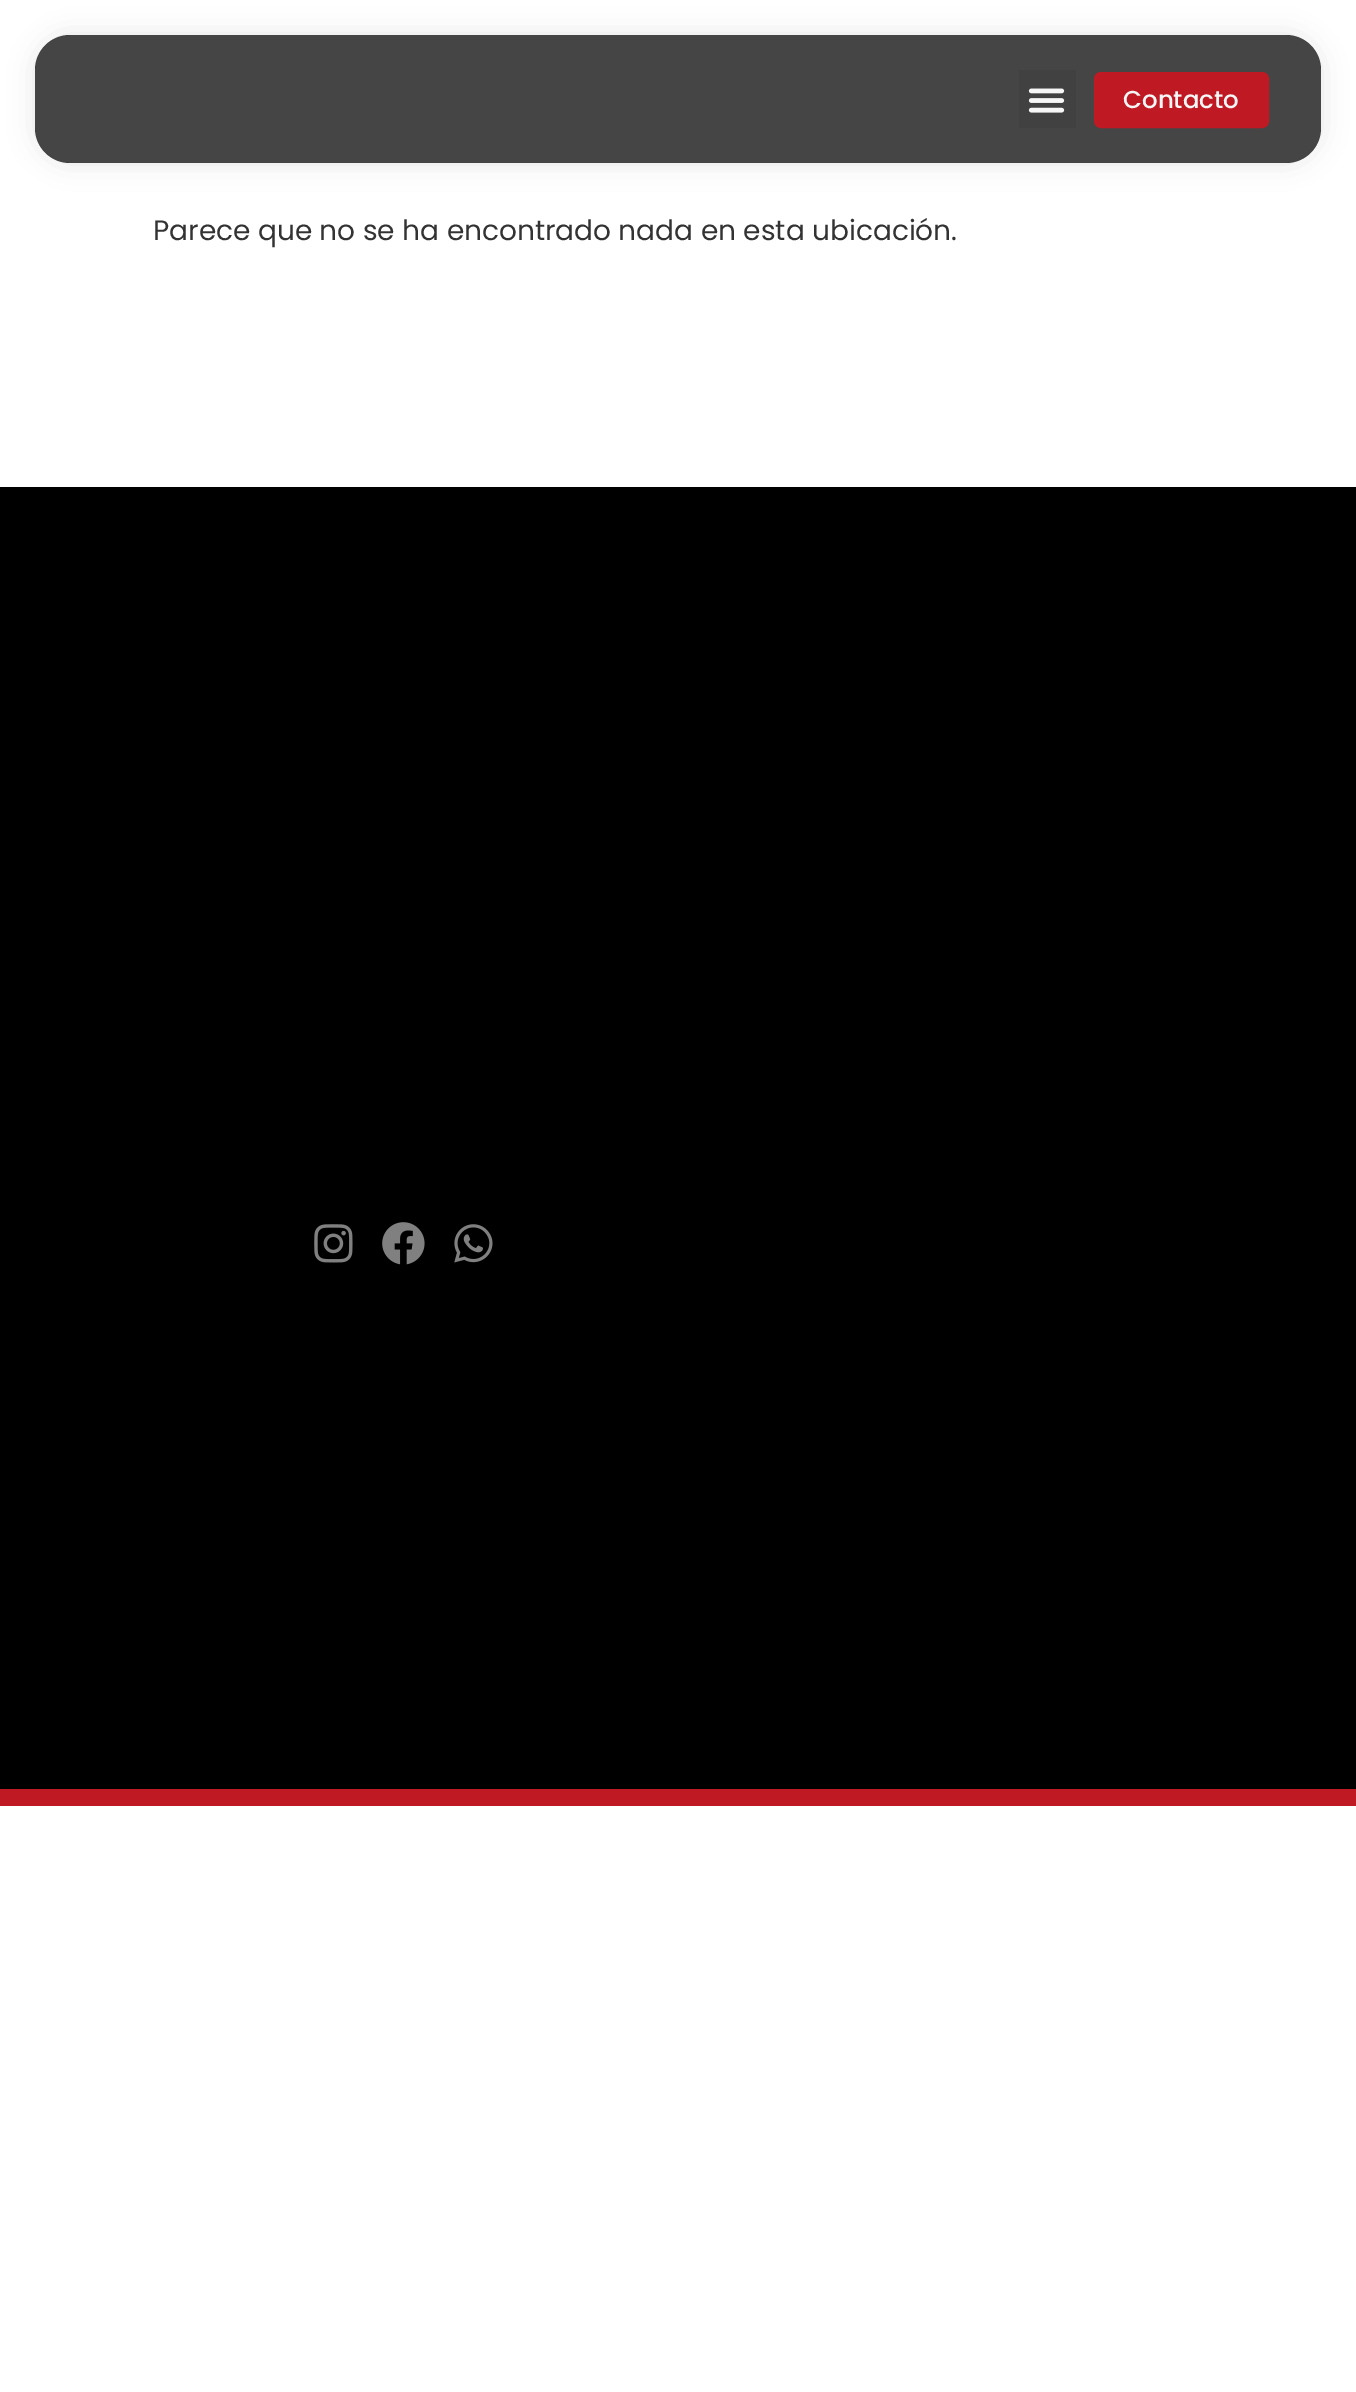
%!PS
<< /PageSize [1356 2392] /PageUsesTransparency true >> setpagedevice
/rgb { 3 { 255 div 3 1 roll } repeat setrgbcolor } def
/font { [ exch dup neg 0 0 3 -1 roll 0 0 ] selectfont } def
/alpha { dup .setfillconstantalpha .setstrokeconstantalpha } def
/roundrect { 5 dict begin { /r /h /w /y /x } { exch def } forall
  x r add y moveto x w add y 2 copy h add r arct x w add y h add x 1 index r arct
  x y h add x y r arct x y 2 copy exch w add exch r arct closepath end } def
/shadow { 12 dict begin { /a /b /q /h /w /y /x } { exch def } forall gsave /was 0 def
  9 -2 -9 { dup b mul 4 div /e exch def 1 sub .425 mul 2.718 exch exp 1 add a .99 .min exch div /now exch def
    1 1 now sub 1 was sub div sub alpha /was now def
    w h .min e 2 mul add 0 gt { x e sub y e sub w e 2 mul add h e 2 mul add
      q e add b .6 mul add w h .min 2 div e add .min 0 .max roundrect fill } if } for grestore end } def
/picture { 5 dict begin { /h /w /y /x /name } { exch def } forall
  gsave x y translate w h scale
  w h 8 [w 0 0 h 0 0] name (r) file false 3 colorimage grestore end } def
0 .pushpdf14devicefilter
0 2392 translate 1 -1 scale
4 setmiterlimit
255 255 255 rgb
0 0 1356 2392 rectfill
gsave
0 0 moveto 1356 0 lineto 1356 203 lineto 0 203 lineto closepath 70 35 moveto 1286 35 lineto 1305.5 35 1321 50.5 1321 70 curveto 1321 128 lineto 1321 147.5 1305.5 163 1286 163 curveto 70 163 lineto 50.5 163 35 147.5 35 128 curveto 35 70 lineto 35 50.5 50.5 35 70 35 curveto closepath eoclip newpath
0 0 0 rgb
35 35 1286 128 35 13 0.1 shadow
grestore
0.73 alpha
0 0 0 rgb
35 35 1286 128 35 roundrect fill
0.05 alpha
1019 70 57 58 rectfill
1 alpha
(img/1.rgb) 1028 88 37 25 picture
191 26 35 rgb
1095 73 173 54 6 roundrect gsave fill grestore
2 setlinewidth
stroke
0 0 0 rgb
0 487 1356 1302 rectfill
191 26 35 rgb
0 1789 1356 17 rectfill
(img/2.rgb) 314 1224 39 39 picture
(img/3.rgb) 382 1222 43 43 picture
(img/4.rgb) 454 1224 39 39 picture
/Poppins-Medium 24.5 font
246 246 246 rgb
1123 108 moveto (Contacto) show
/Poppins-Regular 28 font
51 51 51 rgb
153 240 moveto (Parece que no se ha encontrado nada en esta ubicación.) show
.poppdf14devicefilter showpage
